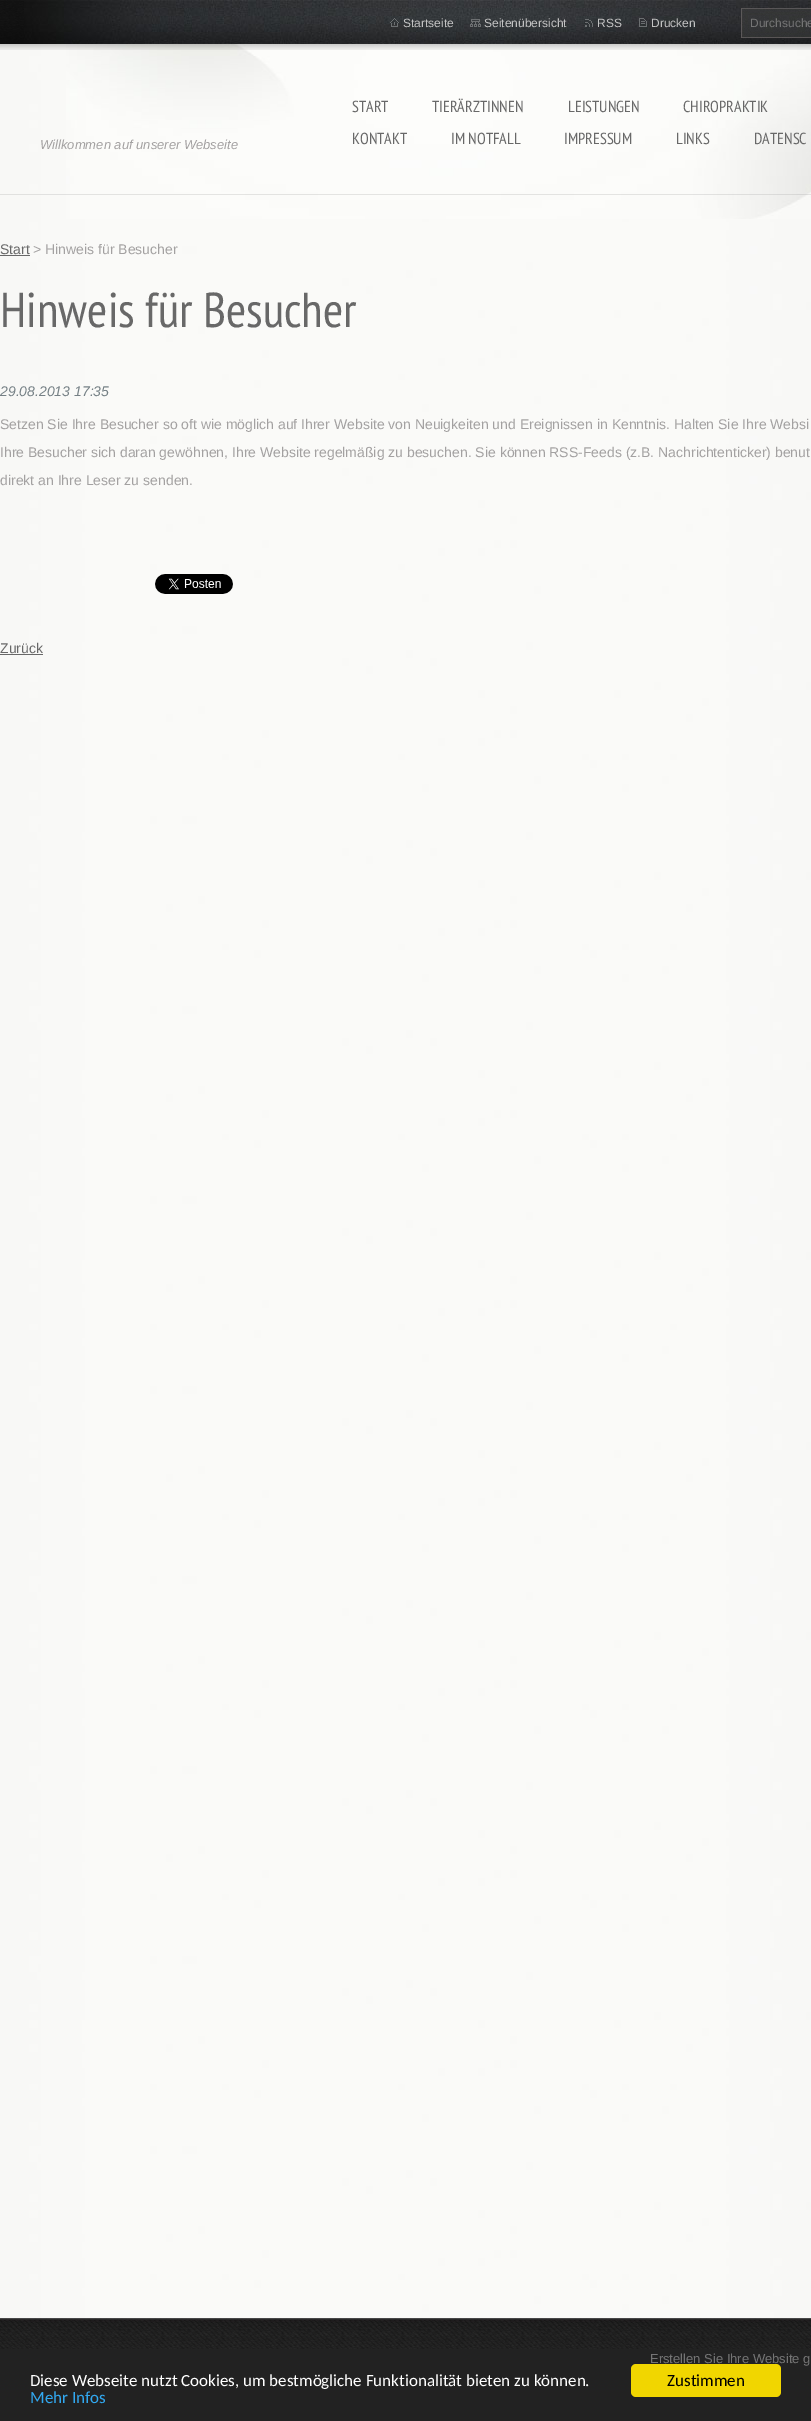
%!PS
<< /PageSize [811 2421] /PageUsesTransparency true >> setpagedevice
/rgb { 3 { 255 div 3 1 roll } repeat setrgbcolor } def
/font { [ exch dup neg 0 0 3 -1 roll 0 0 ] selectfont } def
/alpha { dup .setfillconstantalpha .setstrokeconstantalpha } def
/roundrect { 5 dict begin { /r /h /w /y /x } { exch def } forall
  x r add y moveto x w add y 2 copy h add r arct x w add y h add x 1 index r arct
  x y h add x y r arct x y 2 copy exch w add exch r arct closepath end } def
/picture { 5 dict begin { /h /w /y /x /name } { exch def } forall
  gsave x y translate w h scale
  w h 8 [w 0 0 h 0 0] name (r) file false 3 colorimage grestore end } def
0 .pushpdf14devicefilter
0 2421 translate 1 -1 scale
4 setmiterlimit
255 255 255 rgb
0 0 811 2421 rectfill
(img/1.rgb) 0 44 811 2274 picture
(img/2.rgb) 66 44 745 175 picture
0.26 alpha
158 158 158 rgb
0 194 811 1 rectfill
1 alpha
(img/3.rgb) 0 0 811 50 picture
(img/4.rgb) 24 0 787 44 picture
(img/5.rgb) 390 18 9 9 picture
(img/6.rgb) 470 19 11 8 picture
(img/7.rgb) 585 19 8 8 picture
(img/8.rgb) 639 18 8 9 picture
(img/9.rgb) 741 8 70 30 picture
104 104 104 rgb
0 255 30 1 rectfill
(img/10.rgb) 155 574 78 20 picture
0 654 43 1 rectfill
(img/11.rgb) 0 2318 811 31 picture
34 34 34 rgb
0 2349 811 72 rectfill
241 214 0 rgb
631 2364 150 33 5 roundrect fill
/LiberationSans-Regular 12 font
195 195 195 rgb
[
  [(Startseite) 403 27]
  [(Seitenübersicht) 484 27]
  [(RSS) 597 27]
  [(Drucken) 651 27]
] { aload pop moveto show } forall
117 117 117 rgb
750 27 moveto (Durchsuche) show
/LiberationSans-Italic 13 font
163 161 161 rgb
40 149 moveto (Willkommen auf unserer Webseite) show
/PTSansNarrow-Regular 16 font
104 104 104 rgb
[
  [(START) 352 112]
  [(TIERÄRZTINNEN) 432 112]
  [(LEISTUNGEN) 568 112]
  [(CHIROPRAKTIK) 683 112]
  [(KONTAKT) 352 144]
  [(IM NOTFALL) 451 144]
  [(IMPRESSUM) 564 144]
  [(LINKS) 676 144]
  [(DATENSC) 754 144]
] { aload pop moveto show } forall
/LiberationSans-Regular 14 font
0 254 moveto (Start) show
163 161 161 rgb
33 254 moveto (> Hinweis für Besucher) show
/PTSansNarrow-Regular 49 font
104 104 104 rgb
0 327 moveto (Hinweis für Besucher) show
/LiberationSans-Italic 14 font
117 128 133 rgb
0 396 moveto (29.08.2013 17:35) show
/LiberationSans-Regular 14 font
163 161 161 rgb
[
  [(Setzen Sie Ihre Besucher so oft wie möglich auf Ihrer Website von Neuigkeiten und Ereignissen in Kenntnis. Halten Sie Ihre Websi) 0 429]
  [(Ihre Besucher sich daran gewöhnen, Ihre Website regelmäßig zu besuchen. Sie können RSS-Feeds \(z.B. Nachrichtenticker\) benut) 0 457]
  [(direkt an Ihre Leser zu senden.) 0 485]
] { aload pop moveto show } forall
104 104 104 rgb
0 653 moveto (Zurück) show
/LiberationSans-Regular 13 font
117 117 117 rgb
650 2363 moveto (Erstellen Sie Ihre Website g) show
/Carlito-Regular 17 font
255 255 255 rgb
30 2386 moveto (Diese Webseite nutzt Cookies, um bestmögliche Funktionalität bieten zu können.) show
49 168 240 rgb
30 2403 moveto (Mehr Infos) show
0 0 0 rgb
667 2386 moveto (Zustimmen) show
.poppdf14devicefilter showpage
